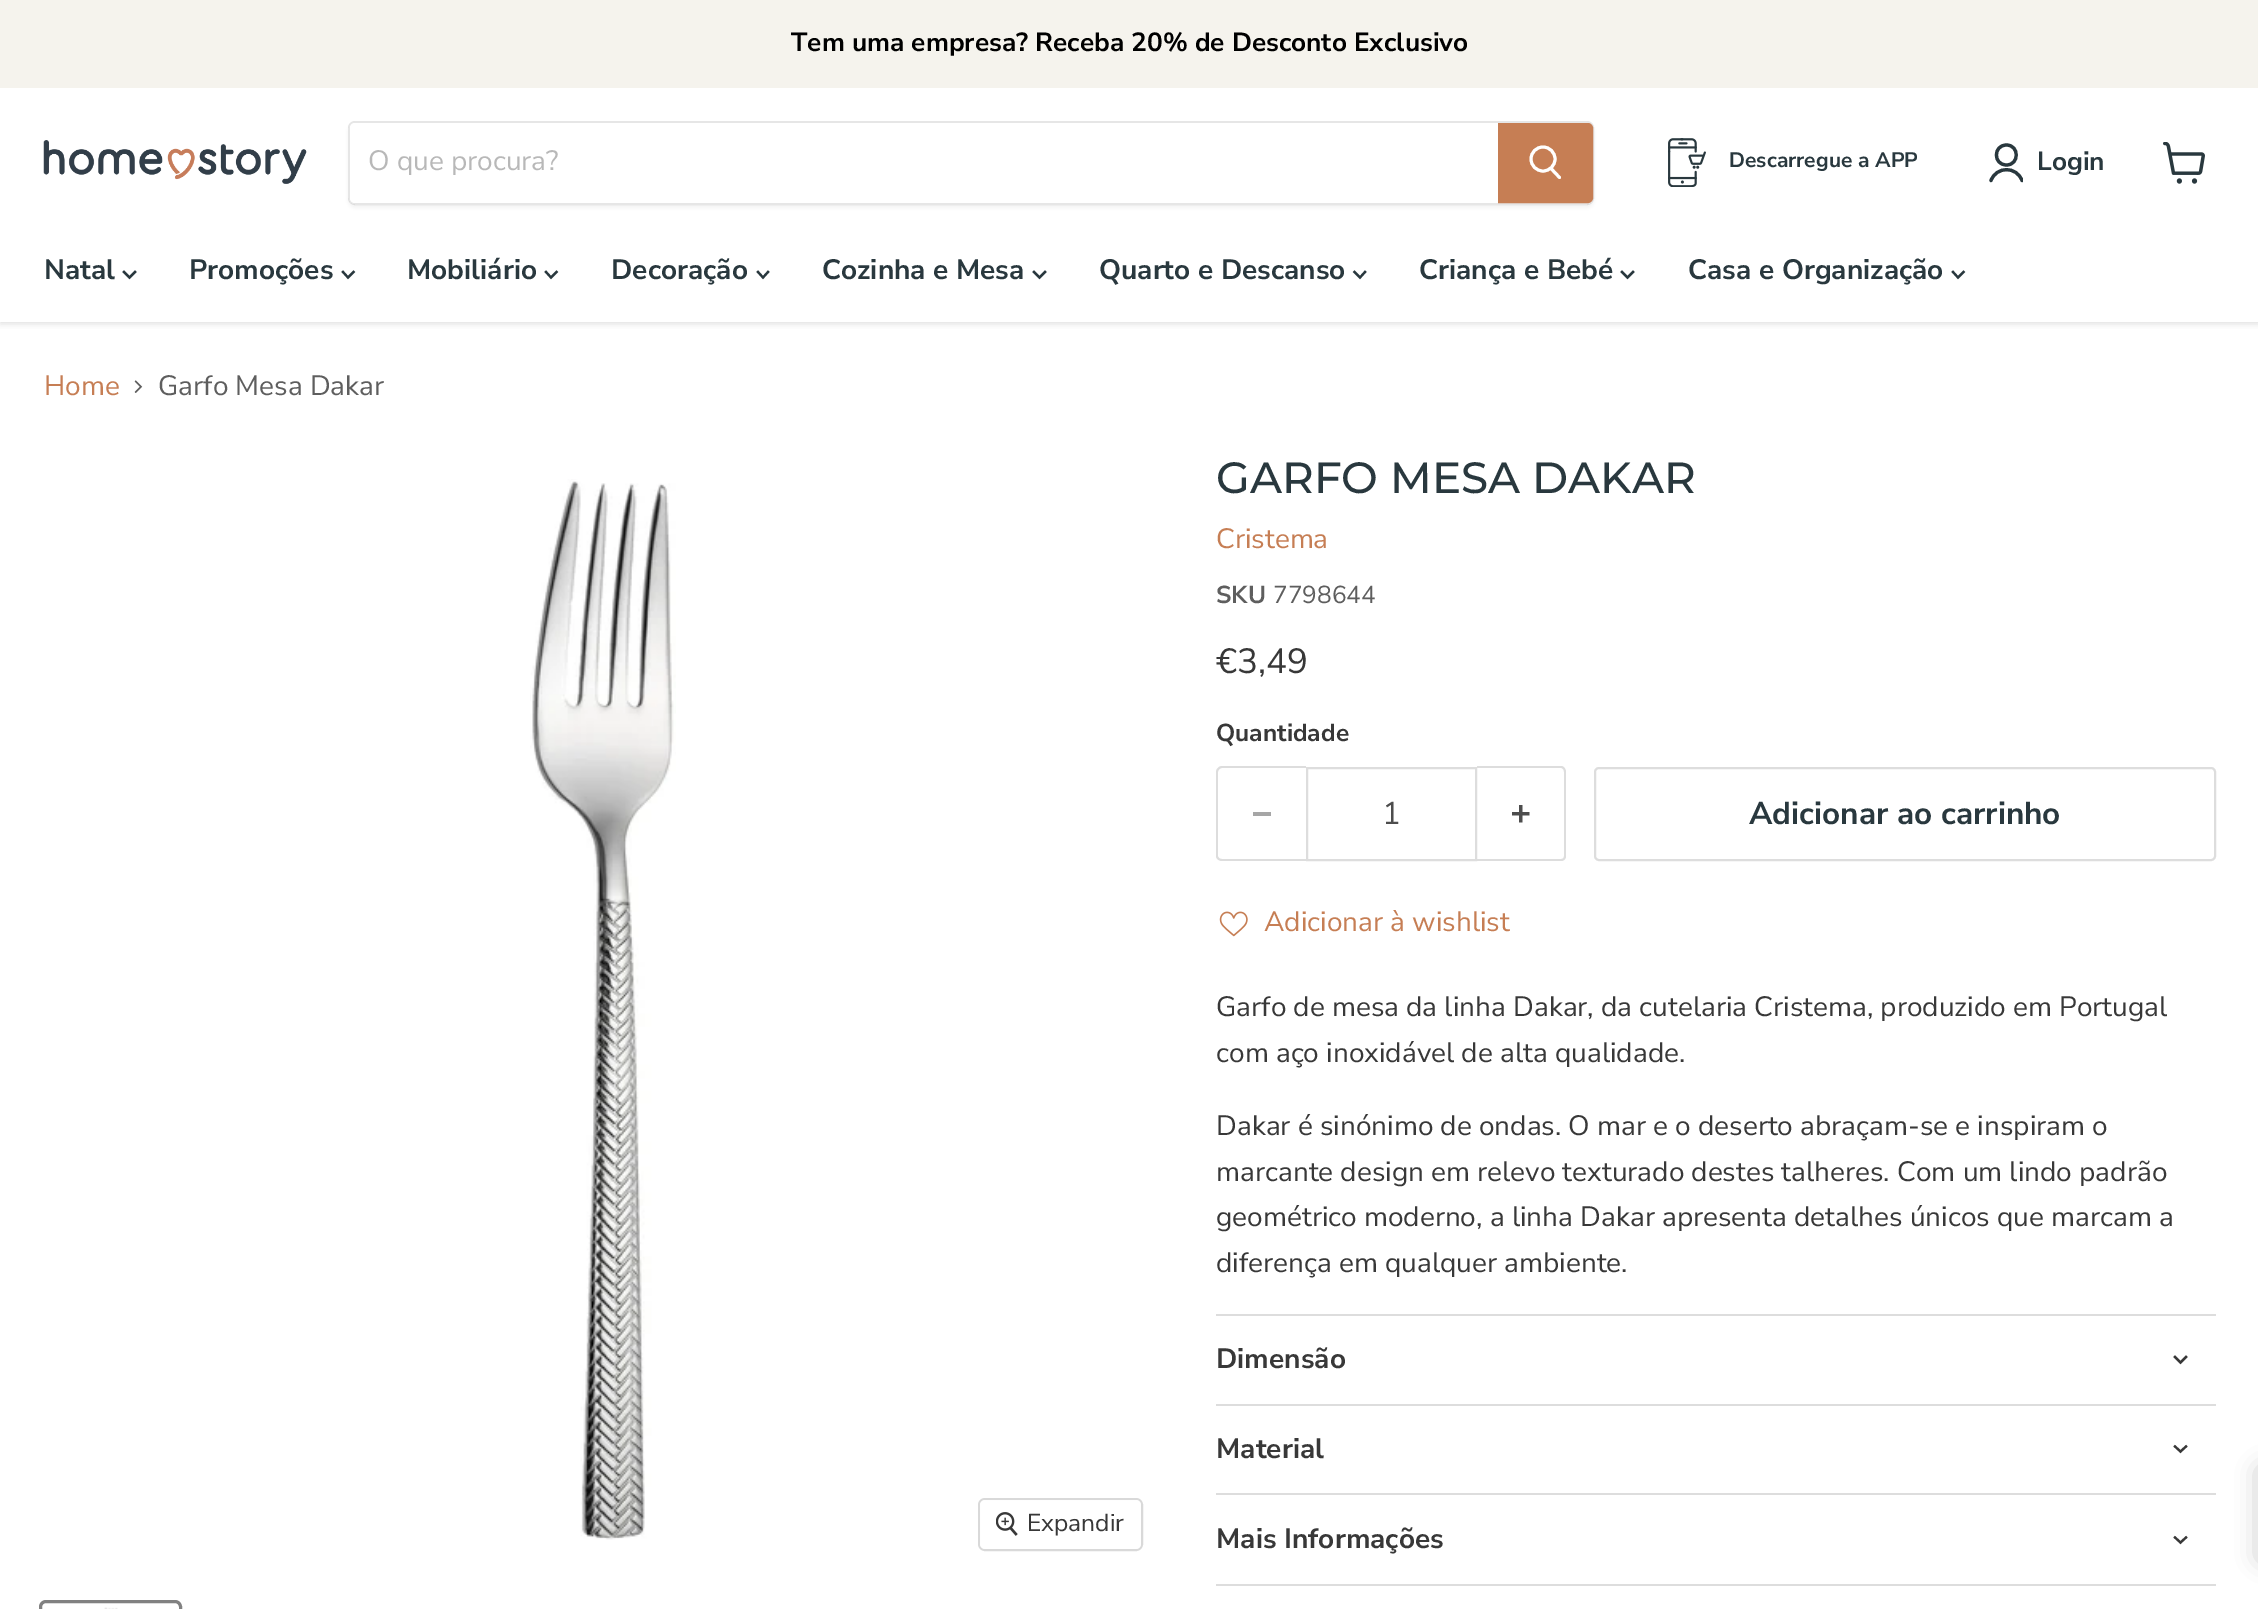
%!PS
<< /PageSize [2258 1609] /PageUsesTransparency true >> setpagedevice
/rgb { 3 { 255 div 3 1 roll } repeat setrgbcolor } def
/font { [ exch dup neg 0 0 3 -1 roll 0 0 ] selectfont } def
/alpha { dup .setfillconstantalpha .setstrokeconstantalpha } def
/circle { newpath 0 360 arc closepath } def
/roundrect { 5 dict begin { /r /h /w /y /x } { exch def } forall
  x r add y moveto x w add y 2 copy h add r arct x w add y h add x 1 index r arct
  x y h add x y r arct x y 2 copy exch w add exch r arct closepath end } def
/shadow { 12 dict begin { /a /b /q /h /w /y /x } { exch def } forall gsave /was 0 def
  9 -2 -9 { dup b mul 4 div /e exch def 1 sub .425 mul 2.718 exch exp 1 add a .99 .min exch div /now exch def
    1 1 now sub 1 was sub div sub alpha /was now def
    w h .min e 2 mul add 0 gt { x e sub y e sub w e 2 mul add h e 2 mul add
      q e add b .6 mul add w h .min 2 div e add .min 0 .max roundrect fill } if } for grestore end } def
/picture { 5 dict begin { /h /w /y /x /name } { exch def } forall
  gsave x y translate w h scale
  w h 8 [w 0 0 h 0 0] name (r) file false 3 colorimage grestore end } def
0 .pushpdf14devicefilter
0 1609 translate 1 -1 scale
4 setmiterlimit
255 255 255 rgb
0 0 2258 1609 rectfill
gsave
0 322 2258 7 rectclip
128 128 128 rgb
0 89 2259 235 0 3.5 0.25 shadow
grestore
245 243 237 rgb
0 0 2258 88 rectfill
(img/1.rgb) 43 140 264 44 picture
gsave
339 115 moveto 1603 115 lineto 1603 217 lineto 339 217 lineto closepath 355 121 moveto 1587 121 lineto 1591 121 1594 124 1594 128 curveto 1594 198 lineto 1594 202 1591 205 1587 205 curveto 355 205 lineto 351 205 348 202 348 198 curveto 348 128 lineto 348 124 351 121 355 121 curveto closepath eoclip newpath
128 128 128 rgb
348 124 1246 84 7 2.5 0.11 shadow
grestore
0.2 alpha
128 128 128 rgb
2 setlinewidth
349 122 1244 82 6 roundrect stroke
1 alpha
255 255 255 rgb
355 123 moveto 1498 123 lineto 1498 203 lineto 355 203 lineto 352 203 350 201 350 198 curveto 350 128 lineto 350 125 352 123 355 123 curveto closepath fill
198 126 84 rgb
1499 124 moveto 1588 124 lineto 1590 124 1592 126 1592 128 curveto 1592 198 lineto 1592 200 1590 202 1588 202 curveto 1499 202 lineto closepath gsave fill grestore
stroke
255 255 255 rgb
3 setlinewidth
1 setlinecap
1559.5 177.5 moveto 1551.5 169 lineto stroke
0 setlinecap
1543 159 12 circle stroke
(img/2.rgb) 1668 138 38 49 picture
41 56 62 rgb
3.2 setlinewidth
1 setlinecap
1 setlinejoin
2006.5 165 moveto 2019.5 165 2019.5 145 2006.5 145 curveto 1993 145 1993 165 2006.5 165 curveto closepath stroke
gsave
1988 142 35 42 rectclip
2022 180.5 moveto 2016.5 166 1996.5 166 1991 180.5 curveto stroke
grestore
(img/3.rgb) 2163 142 42 42 picture
2.2 setlinewidth
2 setlinecap
0 setlinejoin
129.5 277.5 moveto 135 272 lineto 129.5 277.5 moveto 124 272 lineto stroke
348 277.5 moveto 353.5 272 lineto 348 277.5 moveto 343 272 lineto stroke
551 277.5 moveto 556.5 272 lineto 551 277.5 moveto 546 272 lineto stroke
763 277.5 moveto 768 272 lineto 763 277.5 moveto 758 272 lineto stroke
1039.5 277.5 moveto 1045 272 lineto 1039.5 277.5 moveto 1034 272 lineto stroke
1360 277.5 moveto 1365 272 lineto 1360 277.5 moveto 1354.5 272 lineto stroke
1627.5 277.5 moveto 1633 272 lineto 1627.5 277.5 moveto 1622 272 lineto stroke
1958 277.5 moveto 1963.5 272 lineto 1958 277.5 moveto 1953 272 lineto stroke
(img/4.rgb) 134 380 9 13 picture
(img/5.rgb) 530 479 146 1061 picture
217 217 217 rgb
2 setlinewidth
0 setlinecap
979 1499 163 51 6 roundrect stroke
0.9 alpha
255 255 255 rgb
980 1500 161 49 5 roundrect fill
1 alpha
(img/6.rgb) 996 1512 22 24 picture
129 129 129 rgb
3 setlinewidth
40.5 1601.5 140 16 5.5 roundrect stroke
(img/7.rgb) 104 1607 14 2 picture
221 221 221 rgb
1222 766 moveto 1306 766 lineto 1306 861 lineto 1222 861 lineto 1219 861 1216 859 1216 856 curveto 1216 772 lineto 1216 769 1219 766 1222 766 curveto closepath 1222 768 moveto 1306 768 lineto 1306 859 lineto 1222 859 lineto 1220 859 1218 858 1218 856 curveto 1218 772 lineto 1218 770 1220 768 1222 768 curveto closepath eofill
166 166 166 rgb
1253 812 18 4 rectfill
221 221 221 rgb
2 setlinewidth
1307 768 169 92 rectstroke
1477 766 moveto 1561 766 lineto 1564 766 1566 769 1566 772 curveto 1566 856 lineto 1566 859 1564 861 1561 861 curveto 1477 861 lineto closepath 1477 768 moveto 1561 768 lineto 1563 768 1564 770 1564 772 curveto 1564 856 lineto 1564 858 1563 859 1561 859 curveto 1477 859 lineto closepath eofill
(img/8.rgb) 1512 805 18 18 picture
1595 768 620 92 4 roundrect stroke
(img/9.rgb) 1219 911 29 26 picture
1216 1314 1000 2 rectfill
1216 1404 1000 2 rectfill
56 56 56 rgb
2.2 setlinewidth
2 setlinecap
2180.5 1362.5 moveto 2186 1357 lineto 2180.5 1362.5 moveto 2175 1357 lineto stroke
221 221 221 rgb
1216 1493 1000 2 rectfill
56 56 56 rgb
2180.5 1451.5 moveto 2186 1446.5 lineto 2180.5 1451.5 moveto 2175 1446.5 lineto stroke
221 221 221 rgb
1216 1584 1000 2 rectfill
56 56 56 rgb
2180.5 1542.5 moveto 2186 1537.5 lineto 2180.5 1542.5 moveto 2175 1537.5 lineto stroke
117 117 117 rgb
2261 1470 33 88 0 12 0.5 shadow
/NunitoSans-Bold 26.25 font
0 0 0 rgb
791 51 moveto (Tem uma empresa? Receba 20% de Desconto Exclusivo) show
/NunitoSans-Regular 28 font
184 184 184 rgb
368 170 moveto (O que procura?) show
/NunitoSans-Bold 21 font
41 56 62 rgb
1729 167 moveto (Descarregue a APP) show
/NunitoSans-Bold 26.25 font
2037 170 moveto (Login) show
/NunitoSans-Bold 28 font
[
  [(Natal) 44 279]
  [(Promoções) 189 279]
  [(Mobiliário) 407 279]
  [(Decoração) 611 279]
  [(Cozinha e Mesa) 822 279]
  [(Quarto e Descanso) 1099 279]
  [(Criança e Bebé) 1419 279]
  [(Casa e Organização) 1688 279]
] { aload pop moveto show } forall
/NunitoSans-Regular 28 font
198 126 84 rgb
44 395 moveto (Home) show
94 94 94 rgb
158 395 moveto (Garfo Mesa Dakar) show
/NunitoSans-Regular 24.5 font
56 56 56 rgb
1027 1531 moveto (Expandir) show
/Montserrat-Medium 43.75 font
41 56 62 rgb
1216 493 moveto (GARFO MESA DAKAR) show
/NunitoSans-Regular 28 font
198 126 84 rgb
1216 548 moveto (Cristema) show
/NunitoSans-Bold 24.5 font
94 94 94 rgb
1216 603 moveto (SKU) show
/NunitoSans-Regular 24.5 font
1273 603 moveto (7798644) show
/NunitoSans-Regular 35 font
56 56 56 rgb
1216 673 moveto (€3,49) show
/NunitoSans-Bold 24.5 font
1216 741 moveto (Quantidade) show
/NunitoSans-Regular 31.5 font
77 77 77 rgb
1382 824 moveto (1) show
/NunitoSans-Bold 31.5 font
41 56 62 rgb
1749 824 moveto (Adicionar ao carrinho) show
/NunitoSans-Regular 28 font
198 126 84 rgb
1264 931 moveto (Adicionar à wishlist) show
56 56 56 rgb
[
  [(Garfo de mesa da linha Dakar, da cutelaria Cristema, produzido em Portugal) 1216 1016]
  [(com aço inoxidável de alta qualidade.) 1216 1062]
  [(Dakar é sinónimo de ondas. O mar e o deserto abraçam-se e inspiram o) 1216 1135]
  [(marcante design em relevo texturado destes talheres. Com um lindo padrão) 1216 1181]
  [(geométrico moderno, a linha Dakar apresenta detalhes únicos que marcam a) 1216 1226]
  [(diferença em qualquer ambiente.) 1216 1272]
] { aload pop moveto show } forall
/NunitoSans-Bold 28 font
[
  [(Dimensão) 1216 1368]
  [(Material) 1216 1458]
  [(Mais Informações) 1216 1548]
] { aload pop moveto show } forall
.poppdf14devicefilter showpage
